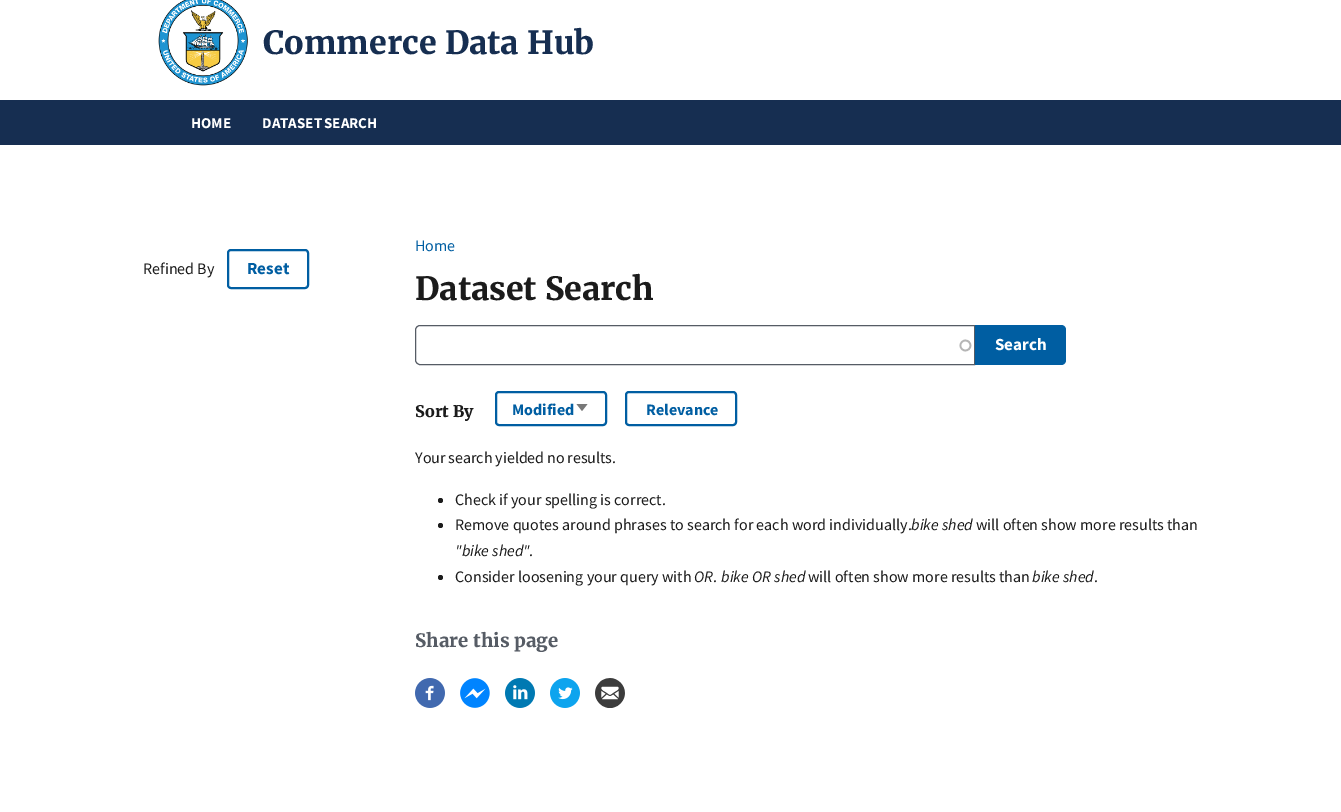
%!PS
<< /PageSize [1341 812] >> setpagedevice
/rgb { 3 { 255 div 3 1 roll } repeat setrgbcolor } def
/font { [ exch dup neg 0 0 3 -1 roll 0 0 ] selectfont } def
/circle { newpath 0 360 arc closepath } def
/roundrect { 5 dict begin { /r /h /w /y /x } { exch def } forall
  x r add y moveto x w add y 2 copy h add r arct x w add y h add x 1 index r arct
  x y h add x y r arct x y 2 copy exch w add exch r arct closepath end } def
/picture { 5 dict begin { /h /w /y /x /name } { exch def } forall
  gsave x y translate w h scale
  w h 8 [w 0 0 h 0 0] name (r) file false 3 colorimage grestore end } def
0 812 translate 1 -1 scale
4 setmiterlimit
255 255 255 rgb
0 0 1341 812 rectfill
(img/1.rgb) 158 0 90 86 picture
22 46 81 rgb
0 100 1341 45 rectfill
0 94 162 rgb
2 setlinewidth
228 250 80 38 3 roundrect stroke
(img/2.rgb) 959 339 13 13 picture
86 92 101 rgb
1 setlinewidth
420 325.5 moveto 974.5 325.5 lineto 974.5 364.5 lineto 420 364.5 lineto 417.5 364.5 415.5 362.5 415.5 360 curveto 415.5 330 lineto 415.5 327.5 417.5 325.5 420 325.5 curveto closepath stroke
0 94 162 rgb
975 325 moveto 1061 325 lineto 1064 325 1066 327 1066 330 curveto 1066 360 lineto 1066 363 1064 365 1061 365 curveto 975 365 lineto closepath fill
27 27 27 rgb
440.5 500.5 2.5 circle fill
440.5 525.5 2.5 circle fill
440.5 577.5 2.5 circle fill
0 94 162 rgb
2 setlinewidth
496 392 110 33 3 roundrect stroke
(img/3.rgb) 576 404 12 7 picture
626 392 110 33 3 roundrect stroke
(img/4.rgb) 415 678 30 30 picture
(img/5.rgb) 460 678 30 30 picture
(img/6.rgb) 505 678 30 30 picture
(img/7.rgb) 550 678 30 30 picture
(img/8.rgb) 595 678 30 30 picture
/Merriweather-Bold 32 font
22 46 81 rgb
263 54 moveto (Commerce Data Hub) show
/SourceSansPro-Bold 15 font
255 255 255 rgb
191 128 moveto (HOME) show
262 128 moveto -1 0 32 (DATASET SEARCH) widthshow
/SourceSansPro-Regular 16 font
27 27 27 rgb
143 274 moveto (Refined By) show
/SourceSansPro-Bold 17 font
0 94 162 rgb
247 274 moveto (Reset) show
/SourceSansPro-Regular 16 font
415 251 moveto (Home) show
/Merriweather-Bold 32 font
27 27 27 rgb
415 300 moveto (Dataset Search) show
/SourceSansPro-Bold 17 font
255 255 255 rgb
995 350 moveto (Search) show
/SourceSansPro-Regular 16 font
27 27 27 rgb
415 463 moveto -0.5 0 32 (Your search yielded no results.) widthshow
455 505 moveto (Check if your spelling is correct.) show
455 530 moveto (Remove quotes around phrases to search for each word individually.) show
/SourceSansPro-Italic 16 font
911 530 moveto (bike shed) show
/SourceSansPro-Regular 16 font
976 530 moveto (will often show more results than) show
/SourceSansPro-Italic 16 font
455 556 moveto ("bike shed") show
/SourceSansPro-Regular 16 font
529 556 moveto (.) show
455 582 moveto (Consider loosening your query with) show
/SourceSansPro-Italic 16 font
694 582 moveto (OR) show
721 582 moveto (bike OR shed) show
/SourceSansPro-Regular 16 font
808 582 moveto (will often show more results than) show
/SourceSansPro-Italic 16 font
1032 582 moveto (bike shed) show
/SourceSansPro-Regular 16 font
713 582 moveto (.) show
1094 582 moveto (.) show
/Merriweather-Bold 16 font
415 417 moveto (Sort By) show
/SourceSansPro-Bold 16 font
0 94 162 rgb
512 415 moveto (Modified) show
646 415 moveto (Relevance) show
/Merriweather-Bold 18.5 font
86 92 101 rgb
415 647 moveto (Share this page) show
showpage
